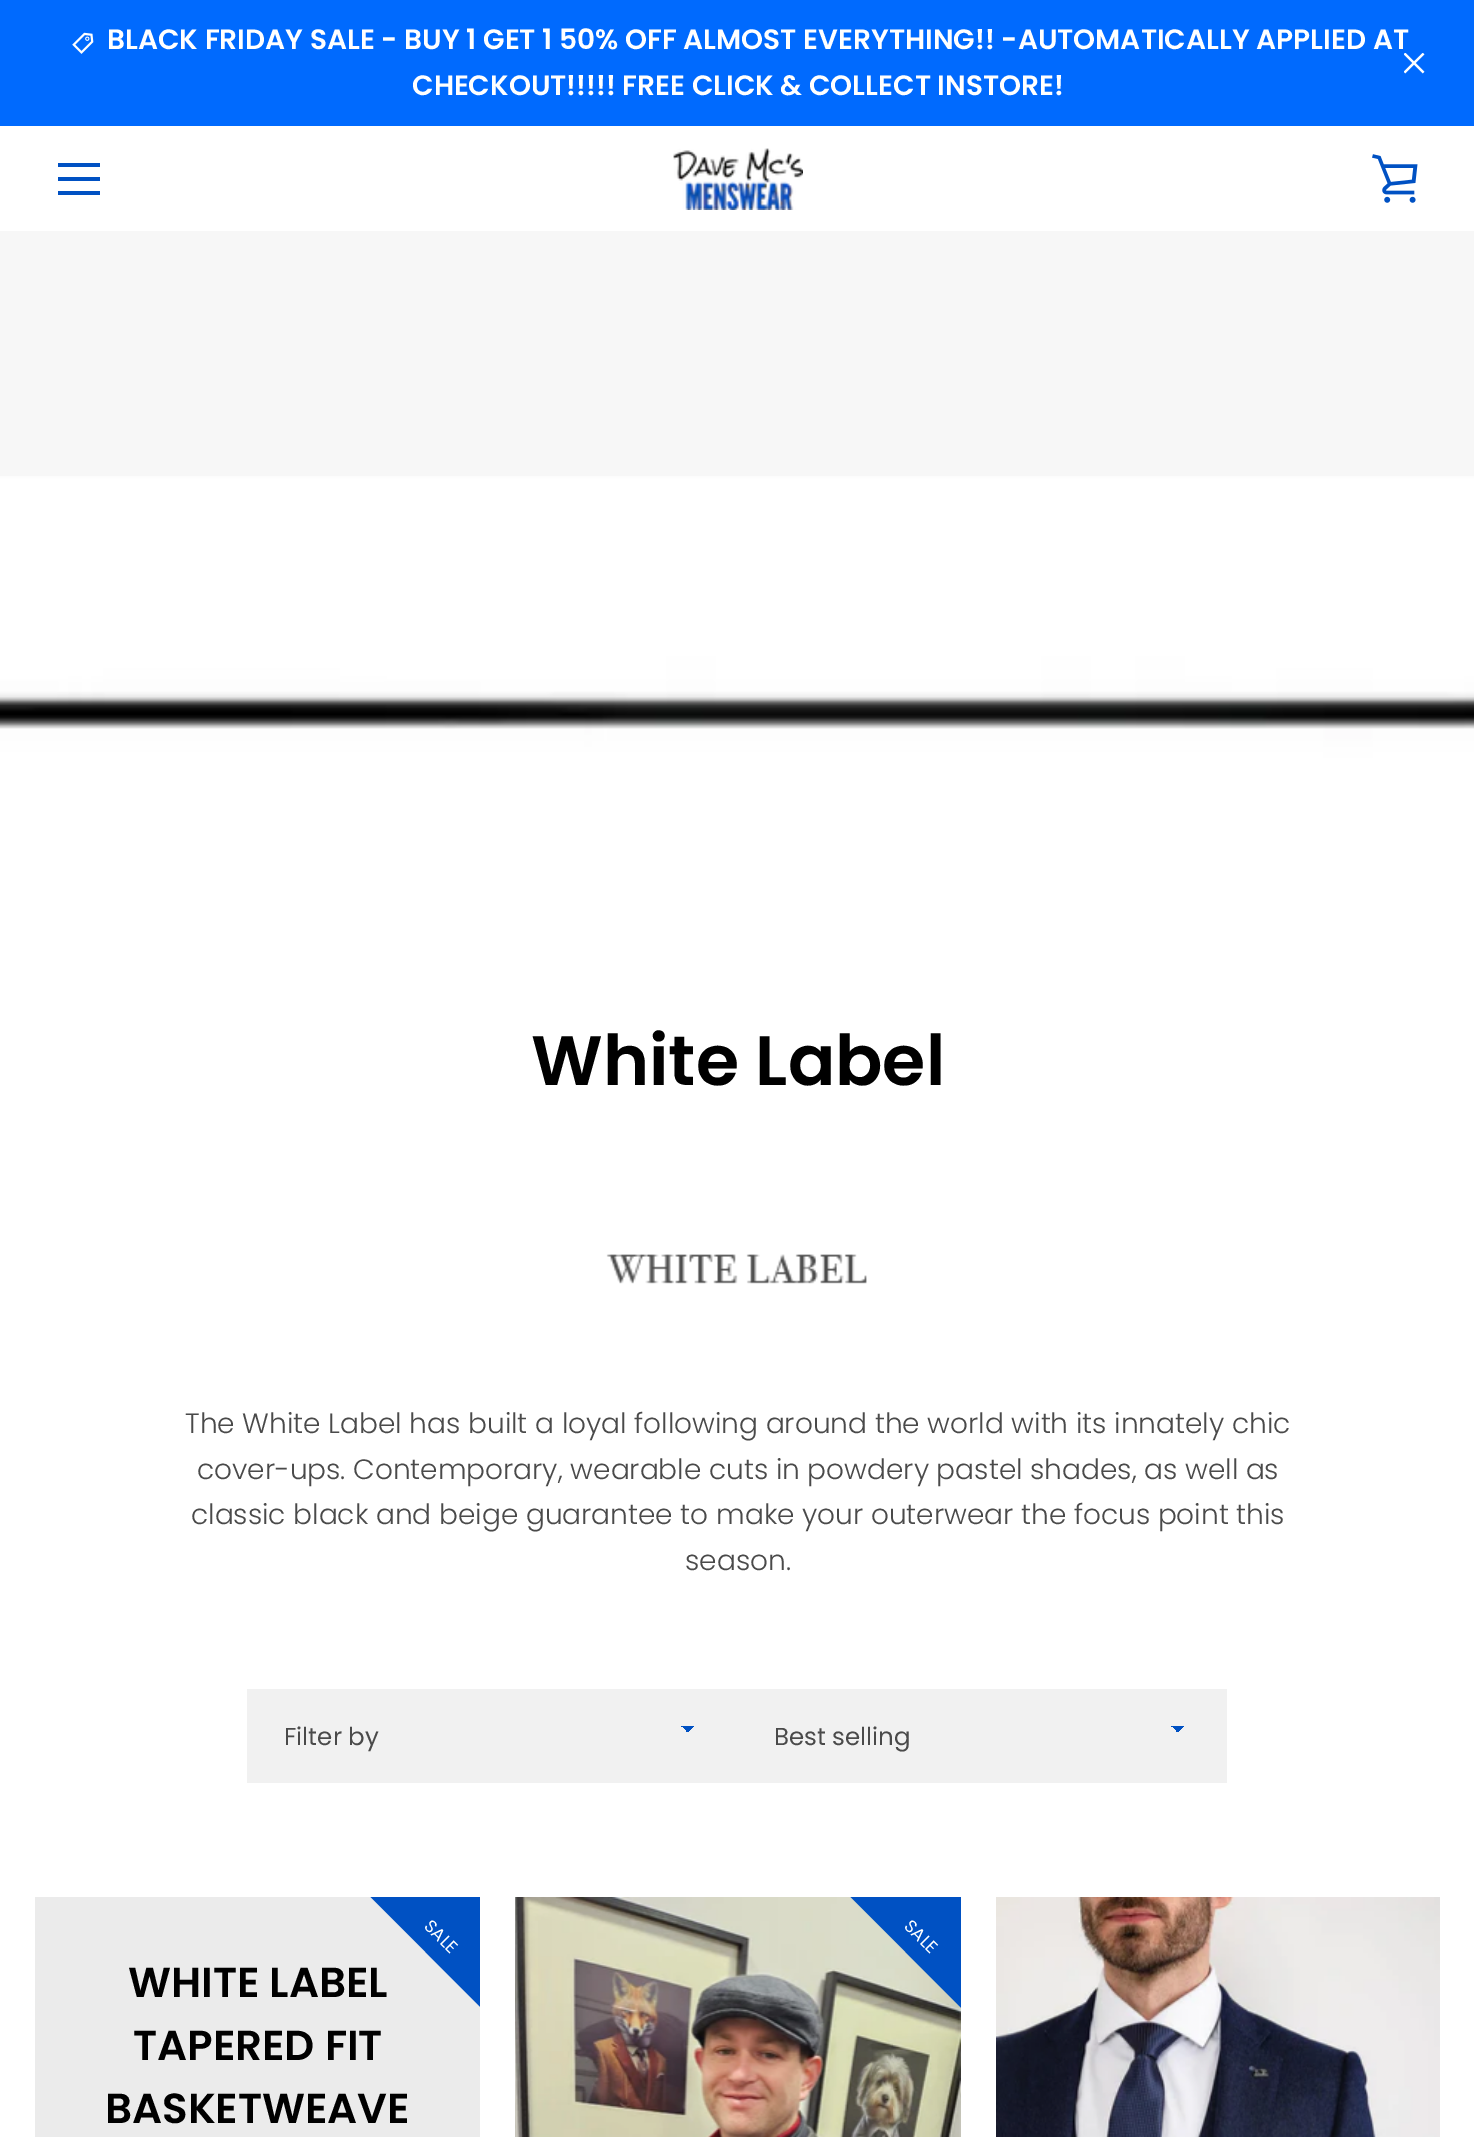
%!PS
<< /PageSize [1474 2137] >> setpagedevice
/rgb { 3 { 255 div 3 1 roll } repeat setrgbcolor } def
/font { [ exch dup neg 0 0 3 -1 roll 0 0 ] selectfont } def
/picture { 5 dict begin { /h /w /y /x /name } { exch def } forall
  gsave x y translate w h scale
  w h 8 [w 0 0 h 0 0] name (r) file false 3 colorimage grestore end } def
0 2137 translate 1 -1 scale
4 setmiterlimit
255 255 255 rgb
0 0 1474 2137 rectfill
0 106 254 rgb
0 0 1474 126 rectfill
(img/1.rgb) 72 32 22 22 picture
(img/2.rgb) 1404 53 21 21 picture
[
  [58 163 42 4 0 81 195]
  [58 177 42 4 0 81 195]
  [58 191 42 4 0 81 195]
] { aload pop rgb rectfill } forall
(img/3.rgb) 673 148 130 62 picture
(img/4.rgb) 1372 154 46 49 picture
247 247 247 rgb
0 231 1474 254 rectfill
(img/5.rgb) 0 476 1474 438 picture
(img/6.rgb) 606 1254 261 30 picture
241 241 241 rgb
247 1689 980 94 rectfill
gsave 688 1726 moveto 695 1726 lineto 695 1733 lineto 688 1733 lineto closepath clip newpath
<< /ShadingType 2 /ColorSpace /DeviceRGB /Coords [688 1726 695 1733] /Extend [true true] /Function << /FunctionType 3 /Domain [0 1] /Functions [<< /FunctionType 2 /Domain [0 1] /C0 [0 0.318 0.765] /C1 [0 0.318 0.765] /N 1 >> << /FunctionType 2 /Domain [0 1] /C0 [0.945 0.945 0.945] /C1 [0.945 0.945 0.945] /N 1 >>] /Bounds [0.5] /Encode [0 1 0 1] >> >> shfill grestore
gsave 681 1726 moveto 688 1726 lineto 688 1732 lineto 681 1732 lineto closepath clip newpath
<< /ShadingType 2 /ColorSpace /DeviceRGB /Coords [681 1733 688 1726] /Extend [true true] /Function << /FunctionType 3 /Domain [0 1] /Functions [<< /FunctionType 2 /Domain [0 1] /C0 [0.945 0.945 0.945] /C1 [0.945 0.945 0.945] /N 1 >> << /FunctionType 2 /Domain [0 1] /C0 [0 0.318 0.765] /C1 [0 0.318 0.765] /N 1 >>] /Bounds [0.5] /Encode [0 1 0 1] >> >> shfill grestore
gsave 1178 1726 moveto 1185 1726 lineto 1185 1733 lineto 1178 1733 lineto closepath clip newpath
<< /ShadingType 2 /ColorSpace /DeviceRGB /Coords [1178 1726 1185 1733] /Extend [true true] /Function << /FunctionType 3 /Domain [0 1] /Functions [<< /FunctionType 2 /Domain [0 1] /C0 [0 0.318 0.765] /C1 [0 0.318 0.765] /N 1 >> << /FunctionType 2 /Domain [0 1] /C0 [0.945 0.945 0.945] /C1 [0.945 0.945 0.945] /N 1 >>] /Bounds [0.5] /Encode [0 1 0 1] >> >> shfill grestore
gsave 1171 1726 moveto 1178 1726 lineto 1178 1732 lineto 1171 1732 lineto closepath clip newpath
<< /ShadingType 2 /ColorSpace /DeviceRGB /Coords [1171 1733 1178 1726] /Extend [true true] /Function << /FunctionType 3 /Domain [0 1] /Functions [<< /FunctionType 2 /Domain [0 1] /C0 [0.945 0.945 0.945] /C1 [0.945 0.945 0.945] /N 1 >> << /FunctionType 2 /Domain [0 1] /C0 [0 0.318 0.765] /C1 [0 0.318 0.765] /N 1 >>] /Bounds [0.5] /Encode [0 1 0 1] >> >> shfill grestore
235 235 235 rgb
35 1897 445 240 rectfill
(img/7.rgb) 515 1897 446 240 picture
gsave
515 1897 446 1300 rectclip
0 81 195 rgb
856 1754 moveto 1104 2001 lineto 1029 2076 lineto 782 1828 lineto closepath fill
grestore
(img/8.rgb) 996 1897 444 240 picture
/Poppins-SemiBold 28 font
255 255 255 rgb
107 49 moveto (BLACK FRIDAY SALE - BUY 1 GET 1 50% OFF ALMOST EVERYTHING!! -AUTOMATICALLY APPLIED AT) show
412 95 moveto (CHECKOUT!!!!! FREE CLICK & COLLECT INSTORE!) show
/Poppins-SemiBold 70 font
0 0 0 rgb
531 1085 moveto (White Label) show
/Poppins-Light 28 font
74 74 74 rgb
[
  [(The White Label has built a loyal following around the world with its innately chic) 185 1433]
  [(cover-ups. Contemporary, wearable cuts in powdery pastel shades, as well as) 197 1479]
  [(classic black and beige guarantee to make your outerwear the focus point this) 191 1524]
  [(season.) 685 1570]
] { aload pop moveto show } forall
/Poppins-Regular 24.5 font
284 1745 moveto (Filter by) show
774 1745 moveto (Best selling) show
/Poppins-SemiBold 42 font
0 0 0 rgb
128 1997 moveto (WHITE LABEL) show
gsave
35 1897 445 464 rectclip
0 81 195 rgb
376 1754 moveto 624 2001 lineto 549 2076 lineto 302 1828 lineto closepath fill
grestore
/Poppins-Regular 17.5 font
255 255 255 rgb
gsave 423 1927 translate 45 rotate 0 0 moveto (SALE) show grestore
/Poppins-SemiBold 42 font
0 0 0 rgb
133 2060 moveto (TAPERED FIT) show
105 2123 moveto (BASKETWEAVE) show
/Poppins-Regular 17.5 font
255 255 255 rgb
gsave 903 1927 translate 45 rotate 0 0 moveto (SALE) show grestore
showpage
